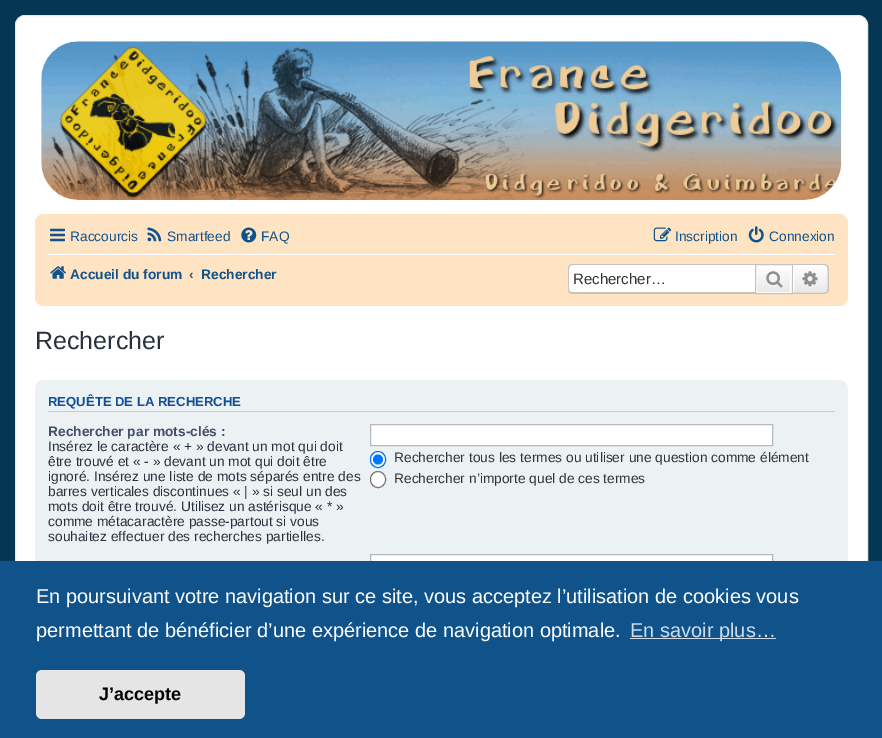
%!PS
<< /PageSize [882 738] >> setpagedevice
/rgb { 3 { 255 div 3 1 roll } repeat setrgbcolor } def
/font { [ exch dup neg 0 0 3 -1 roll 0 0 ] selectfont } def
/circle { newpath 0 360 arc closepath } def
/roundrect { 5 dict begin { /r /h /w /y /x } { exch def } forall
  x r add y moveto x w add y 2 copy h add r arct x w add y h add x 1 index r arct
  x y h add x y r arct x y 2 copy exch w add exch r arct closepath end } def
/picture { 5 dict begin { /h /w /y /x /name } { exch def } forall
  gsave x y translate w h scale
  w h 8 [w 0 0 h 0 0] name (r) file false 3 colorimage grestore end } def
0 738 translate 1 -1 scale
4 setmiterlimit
5 55 84 rgb
0 0 882 738 rectfill
255 255 255 rgb
15.5 15.5 852 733 9.5 roundrect gsave fill grestore
230 233 237 rgb
stroke
(img/1.rgb) 41 41 801 159 picture
255 228 196 rgb
35 214 813 92 9 roundrect fill
(img/2.rgb) 50 228 15 14 picture
(img/3.rgb) 147 227 15 15 picture
(img/4.rgb) 241 227 16 16 picture
(img/5.rgb) 653 227 19 15 picture
(img/6.rgb) 748 226 16 17 picture
255 255 255 rgb
48 254 787 1 rectfill
(img/7.rgb) 50 266 16 13 picture
573 265 moveto 755 265 lineto 755 293 lineto 573 293 lineto 571 293 569 291 569 289 curveto 569 269 lineto 569 267 571 265 573 265 curveto closepath fill
199 195 191 rgb
572 264 moveto 755 264 lineto 755 294 lineto 572 294 lineto 570 294 568 292 568 289 curveto 568 269 lineto 568 266 570 264 572 264 curveto closepath 572 265 moveto 755 265 lineto 755 292 lineto 572 292 lineto 570 292 569 291 569 289 curveto 569 269 lineto 569 267 570 265 572 265 curveto closepath eofill
gsave 757 265 moveto 792 265 lineto 792 293 lineto 757 293 lineto closepath clip newpath
<< /ShadingType 2 /ColorSpace /DeviceRGB /Coords [774 265 774 293] /Extend [true true] /Function << /FunctionType 2 /Domain [0 1] /C0 [1 1 1] /C1 [0.914 0.914 0.914] /N 1 >> >> shfill grestore
255 255 255 rgb
756.5 265.5 34 27 rectstroke
199 195 191 rgb
755.5 264.5 37 29 rectstroke
(img/8.rgb) 766 271 17 17 picture
gsave 793.5 265.5 moveto 824 265.5 lineto 826 265.5 827.5 267 827.5 269 curveto 827.5 289 lineto 827.5 291 826 292.5 824 292.5 curveto 793.5 292.5 lineto closepath clip newpath
<< /ShadingType 2 /ColorSpace /DeviceRGB /Coords [810 265 810 293] /Extend [true true] /Function << /FunctionType 2 /Domain [0 1] /C0 [1 1 1] /C1 [0.914 0.914 0.914] /N 1 >> >> shfill grestore
255 255 255 rgb
793.5 265.5 moveto 824 265.5 lineto 826 265.5 827.5 267 827.5 269 curveto 827.5 289 lineto 827.5 291 826 292.5 824 292.5 curveto 793.5 292.5 lineto closepath stroke
199 195 191 rgb
792.5 264 moveto 824 264 lineto 826.5 264 829 266 829 269 curveto 829 289 lineto 829 291.5 826.5 294 824 294 curveto 792.5 294 lineto closepath 792.5 265 moveto 824 265 lineto 826 265 827.5 266.5 827.5 269 curveto 827.5 289 lineto 827.5 291 826 292.5 824 292.5 curveto 792.5 292.5 lineto closepath eofill
(img/9.rgb) 802 271 16 16 picture
236 241 243 rgb
35 380 813 245 9 roundrect fill
204 204 204 rgb
48 411 787 1 rectfill
255 255 255 rgb
370.5 424.5 moveto 772.5 424.5 lineto 772.5 445.5 lineto 370.5 445.5 lineto closepath gsave fill grestore
180 186 192 rgb
stroke
255 255 255 rgb
370.5 451.5 15 16 7.5 roundrect gsave fill grestore
0 117 255 rgb
stroke
378 459.5 5 circle fill
255 255 255 rgb
370.5 471.5 15 16 7.5 roundrect gsave fill grestore
118 118 118 rgb
stroke
255 255 255 rgb
371 555 401 6 rectfill
180 186 192 rgb
370.5 554.5 402 21 rectstroke
15 83 138 rgb
0 561 882 177 rectfill
207 221 232 rgb
630 638 146 1 rectfill
229 229 229 rgb
36 670 209 49 6 roundrect fill
/LiberationSans-Regular 13.75 font
16 82 137 rgb
[
  [(Raccourcis) 70 241]
  [(Smartfeed) 167 241]
  [(FAQ) 261 241]
  [(Inscription) 675 241]
  [(Connexion) 769 241]
] { aload pop moveto show } forall
/LiberationSans-Bold 13.75 font
70 279 moveto (Accueil du forum) show
85 85 85 rgb
189 279 moveto (‹) show
16 82 137 rgb
201 279 moveto (Rechercher) show
/LiberationSans-Regular 15 font
51 51 51 rgb
573 284 moveto (Rechercher…) show
/LiberationSans-Regular 25 font
40 49 63 rgb
35 349 moveto (Rechercher) show
/LiberationSans-Bold 13.1 font
17 80 152 rgb
48 406 moveto (REQUÊTE DE LA RECHERCHE) show
/LiberationSans-Bold 13.75 font
66 80 103 rgb
48 436 moveto (Rechercher par mots-clés :) show
/LiberationSans-Regular 13.75 font
40 49 63 rgb
[
  [(Insérez le caractère « + » devant un mot qui doit) 48 451]
  [(être trouvé et « - » devant un mot qui doit être) 48 466]
  [(ignoré. Insérez une liste de mots séparés entre des) 48 481]
  [(barres verticales discontinues « | » si seul un des) 48 496]
  [(mots doit être trouvé. Utilisez un astérisque « * ») 48 511]
  [(comme métacaractère passe-partout si vous) 48 526]
  [(souhaitez effectuer des recherches partielles.) 48 541]
] { aload pop moveto show } forall
51 51 51 rgb
394 462 moveto (Rechercher tous les termes ou utiliser une question comme élément) show
394 483 moveto (Rechercher n’importe quel de ces termes) show
/LiberationSans-Regular 20 font
255 255 255 rgb
36 603 moveto (En poursuivant votre navigation sur ce site, vous acceptez l’utilisation de cookies vous) show
36 637 moveto (permettant de bénéficier d’une expérience de navigation optimale.) show
207 221 232 rgb
630 637 moveto (En savoir plus…) show
/LiberationSans-Bold 18 font
0 0 0 rgb
99 700 moveto (J’accepte) show
showpage
